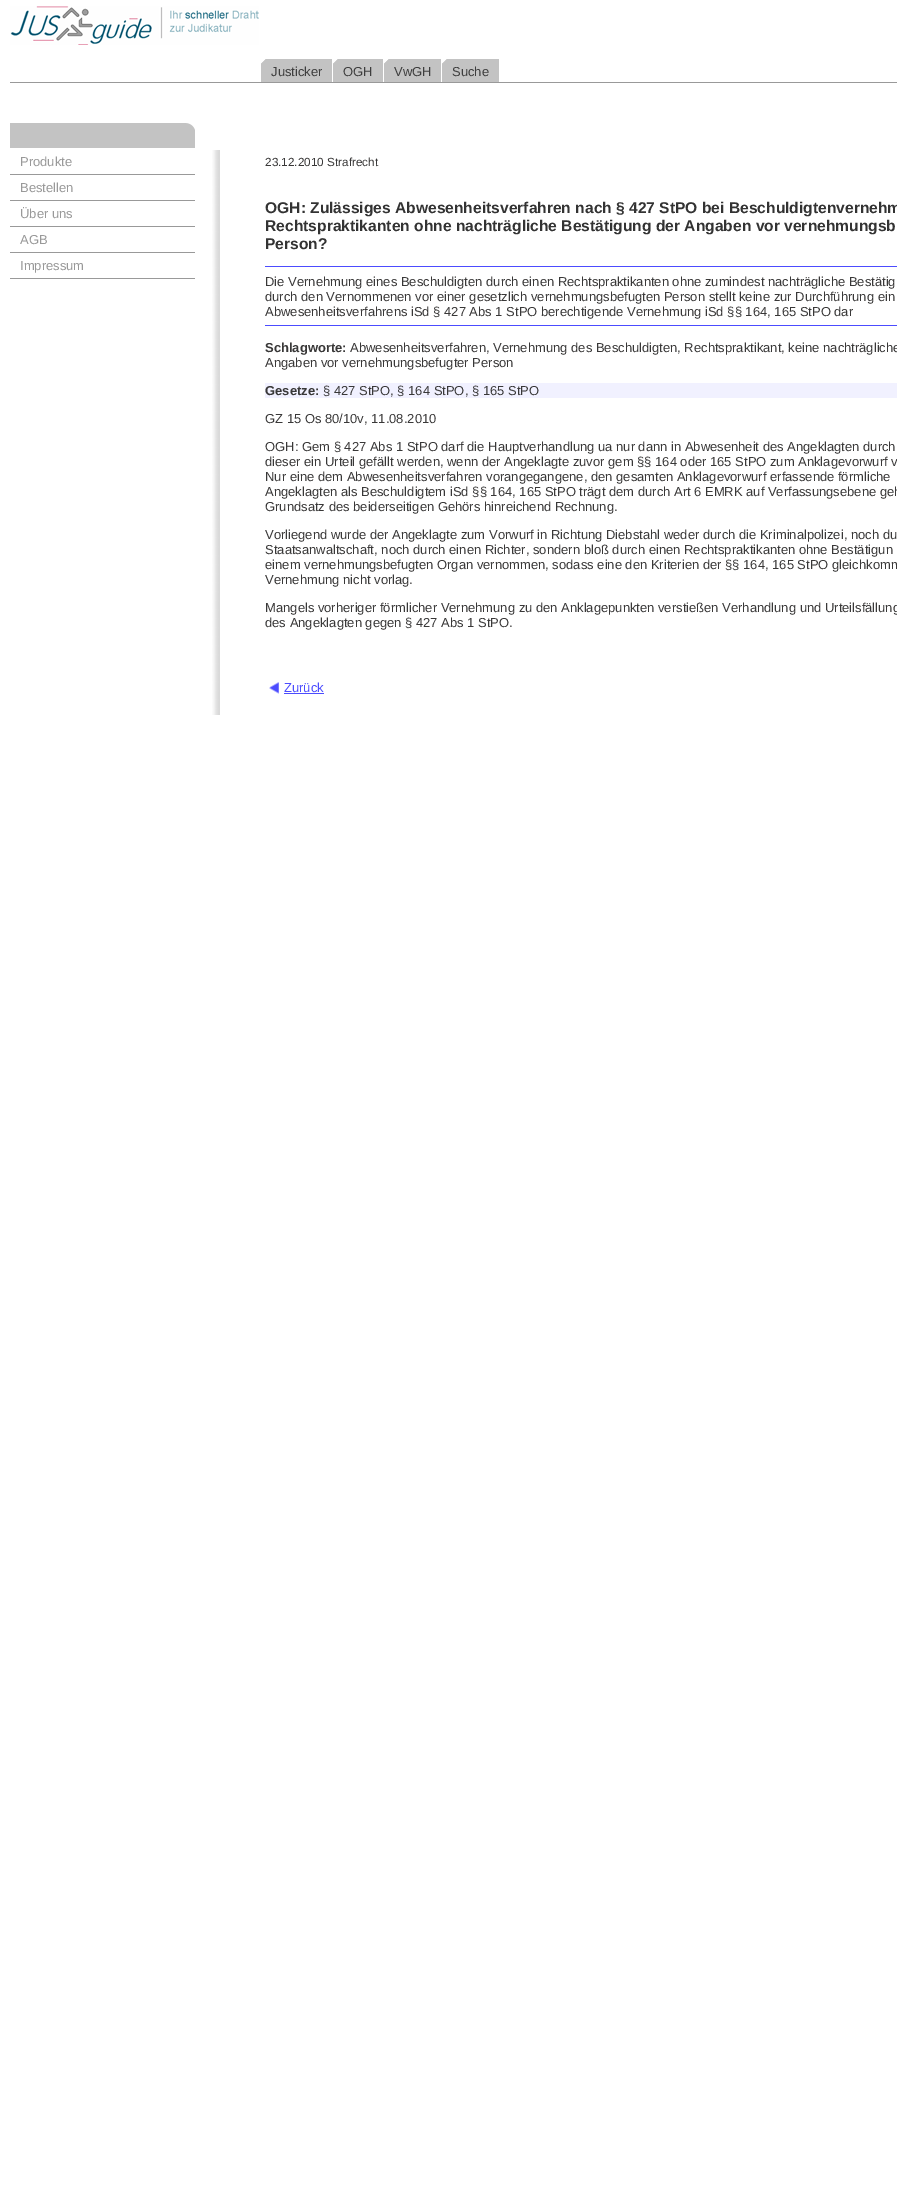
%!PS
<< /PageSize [897 2190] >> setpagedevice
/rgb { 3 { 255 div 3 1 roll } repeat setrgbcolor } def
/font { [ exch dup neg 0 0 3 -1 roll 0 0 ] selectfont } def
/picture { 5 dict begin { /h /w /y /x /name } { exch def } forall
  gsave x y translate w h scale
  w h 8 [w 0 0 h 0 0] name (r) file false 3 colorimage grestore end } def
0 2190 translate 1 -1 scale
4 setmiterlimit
255 255 255 rgb
0 0 897 2190 rectfill
(img/1.rgb) 10 6 249 39 picture
153 153 153 rgb
10 82 887 1 rectfill
(img/2.rgb) 261 59 71 23 picture
(img/3.rgb) 333 59 50 23 picture
(img/4.rgb) 384 59 57 23 picture
(img/5.rgb) 442 59 57 23 picture
(img/6.rgb) 10 123 185 25 picture
[
  [10 174 185 1 153 153 153]
  [10 200 185 1 153 153 153]
  [10 226 185 1 153 153 153]
  [10 252 185 1 153 153 153]
  [10 278 185 1 153 153 153]
] { aload pop rgb rectfill } forall
(img/7.rgb) 212 150 8 565 picture
[
  [265 266 632 1 76 76 255]
  [265 325 632 1 76 76 255]
  [265 383 632 15 241 241 255]
] { aload pop rgb rectfill } forall
(img/8.rgb) 269 682 10 12 picture
76 76 255 rgb
284 693 40 1 rectfill
/LiberationSans-Regular 13 font
62 62 62 rgb
[
  [(Justicker) 271 76]
  [(OGH) 343 76]
  [(VwGH) 394 76]
  [(Suche) 452 76]
] { aload pop moveto show } forall
153 153 153 rgb
[
  [(Produkte) 20 166]
  [(Bestellen) 20 192]
  [(Über uns) 20 218]
  [(AGB) 20 244]
  [(Impressum) 20 270]
] { aload pop moveto show } forall
/LiberationSans-Regular 11.75 font
57 56 56 rgb
265 166 moveto (23.12.2010 Strafrecht) show
/LiberationSans-Bold 15.6 font
51 51 51 rgb
[
  [(OGH: Zulässiges Abwesenheitsverfahren nach § 427 StPO bei Beschuldigtenvernehm) 265 213]
  [(Rechtspraktikanten ohne nachträgliche Bestätigung der Angaben vor vernehmungsb) 265 231]
  [(Person?) 265 249]
] { aload pop moveto show } forall
/LiberationSans-Regular 13 font
57 56 56 rgb
[
  [(Die Vernehmung eines Beschuldigten durch einen Rechtspraktikanten ohne zumindest nachträgliche Bestätig) 265 286]
  [(durch den Vernommenen vor einer gesetzlich vernehmungsbefugten Person stellt keine zur Durchführung ein) 265 301]
  [(Abwesenheitsverfahrens iSd § 427 Abs 1 StPO berechtigende Vernehmung iSd §§ 164, 165 StPO dar) 265 316]
] { aload pop moveto show } forall
/LiberationSans-Bold 13 font
265 352 moveto (Schlagworte:) show
/LiberationSans-Regular 13 font
350 352 moveto (Abwesenheitsverfahren, Vernehmung des Beschuldigten, Rechtspraktikant, keine nachträgliche) show
265 367 moveto (Angaben vor vernehmungsbefugter Person) show
/LiberationSans-Bold 13 font
265 395 moveto (Gesetze:) show
/LiberationSans-Regular 13 font
[
  [(§ 427 StPO, § 164 StPO, § 165 StPO) 323 395]
  [(GZ 15 Os 80/10v, 11.08.2010) 265 423]
  [(OGH: Gem § 427 Abs 1 StPO darf die Hauptverhandlung ua nur dann in Abwesenheit des Angeklagten durch) 265 451]
  [(dieser ein Urteil gefällt werden, wenn der Angeklagte zuvor gem §§ 164 oder 165 StPO zum Anklagevorwurf v) 265 466]
  [(Nur eine dem Abwesenheitsverfahren vorangegangene, den gesamten Anklagevorwurf erfassende förmliche) 265 481]
  [(Angeklagten als Beschuldigtem iSd §§ 164, 165 StPO trägt dem durch Art 6 EMRK auf Verfassungsebene geh) 265 496]
  [(Grundsatz des beiderseitigen Gehörs hinreichend Rechnung.) 265 511]
  [(Vorliegend wurde der Angeklagte zum Vorwurf in Richtung Diebstahl weder durch die Kriminalpolizei, noch du) 265 539]
  [(Staatsanwaltschaft, noch durch einen Richter, sondern bloß durch einen Rechtspraktikanten ohne Bestätigun) 265 554]
  [(einem vernehmungsbefugten Organ vernommen, sodass eine den Kriterien der §§ 164, 165 StPO gleichkomm) 265 569]
  [(Vernehmung nicht vorlag.) 265 584]
  [(Mangels vorheriger förmlicher Vernehmung zu den Anklagepunkten verstießen Verhandlung und Urteilsfällung) 265 612]
  [(des Angeklagten gegen § 427 Abs 1 StPO.) 265 627]
] { aload pop moveto show } forall
76 76 255 rgb
284 692 moveto (Zurück) show
showpage
